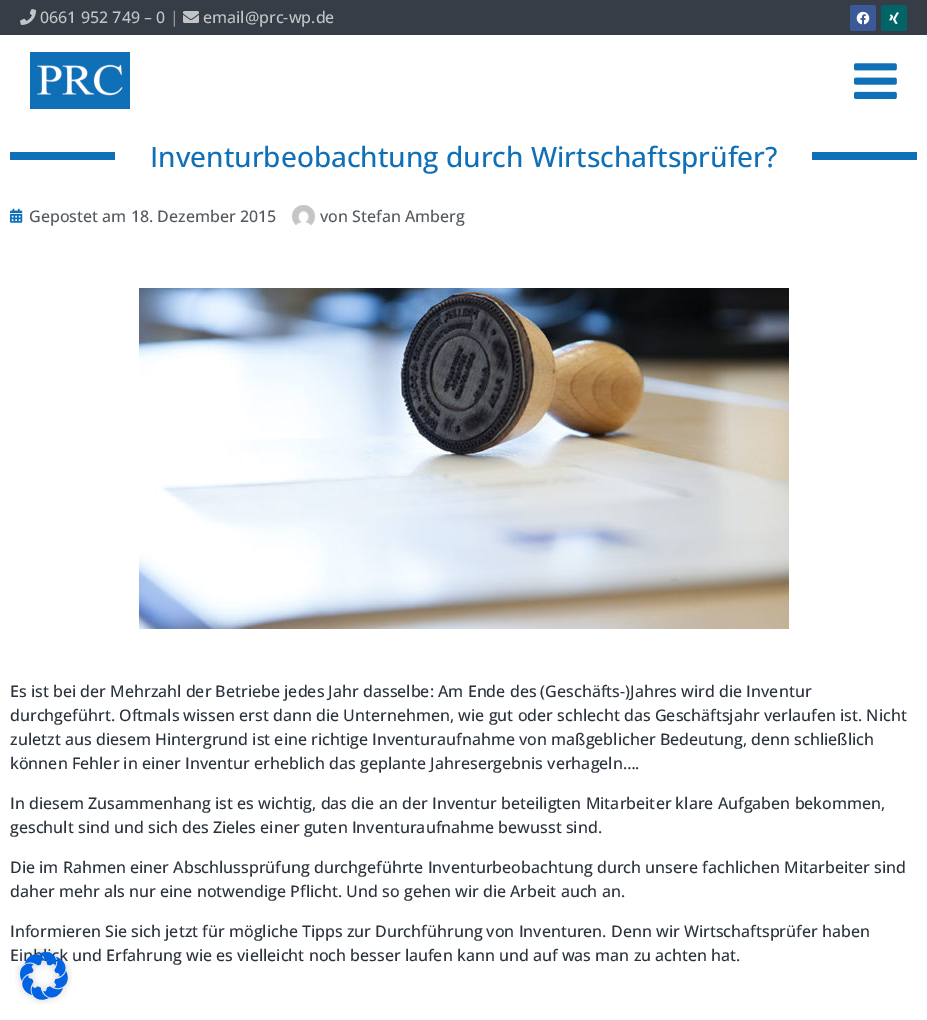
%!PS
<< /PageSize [927 1020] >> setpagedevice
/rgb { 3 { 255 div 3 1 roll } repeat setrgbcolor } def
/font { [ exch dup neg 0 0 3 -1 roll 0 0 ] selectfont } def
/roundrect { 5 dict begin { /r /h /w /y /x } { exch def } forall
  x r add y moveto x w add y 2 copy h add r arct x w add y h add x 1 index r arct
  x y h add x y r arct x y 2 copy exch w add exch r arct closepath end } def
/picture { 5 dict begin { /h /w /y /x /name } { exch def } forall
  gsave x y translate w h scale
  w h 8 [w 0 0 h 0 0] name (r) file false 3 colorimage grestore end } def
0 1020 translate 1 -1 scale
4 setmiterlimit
255 255 255 rgb
0 0 927 1020 rectfill
54 61 71 rgb
0 0 927 35 rectfill
(img/1.rgb) 20 9 16 16 picture
(img/2.rgb) 183 11 16 12 picture
59 89 152 rgb
850 5 26 26 2.5 roundrect fill
(img/3.rgb) 856 11 14 14 picture
2 100 102 rgb
881 5 26 26 2.5 roundrect fill
(img/4.rgb) 889 12 10 12 picture
(img/5.rgb) 30 52 100 57 picture
(img/6.rgb) 854 63 43 36 picture
15 112 183 rgb
10 152 105 8 rectfill
812 152 105 8 rectfill
(img/7.rgb) 10 208 13 15 picture
(img/8.rgb) 292 205 23 21 picture
(img/9.rgb) 139 288 650 341 picture
/OpenSans-Medium 16 font
195 197 200 rgb
40 23 moveto (0661 952 749 – 0) show
153 153 153 rgb
170 23 moveto (|) show
195 197 200 rgb
203 23 moveto (email@prc-wp.de) show
/OpenSans-Medium 28 font
15 112 183 rgb
150 167 moveto (Inventurbeobachtung durch Wirtschaftsprüfer?) show
/OpenSans-Medium 16 font
84 89 95 rgb
29 222 moveto (Gepostet am 18. Dezember 2015) show
320 222 moveto (von Stefan Amberg) show
44 51 60 rgb
[
  [(Es ist bei der Mehrzahl der Betriebe jedes Jahr dasselbe: Am Ende des \(Geschäfts-\)Jahres wird die Inventur) 10 697]
  [(durchgeführt. Oftmals wissen erst dann die Unternehmen, wie gut oder schlecht das Geschäftsjahr verlaufen ist. Nicht) 10 721]
  [(zuletzt aus diesem Hintergrund ist eine richtige Inventuraufnahme von maßgeblicher Bedeutung, denn schließlich) 10 745]
  [(können Fehler in einer Inventur erheblich das geplante Jahresergebnis verhageln….) 10 769]
  [(In diesem Zusammenhang ist es wichtig, das die an der Inventur beteiligten Mitarbeiter klare Aufgaben bekommen,) 10 809]
  [(geschult sind und sich des Zieles einer guten Inventuraufnahme bewusst sind.) 10 833]
  [(Die im Rahmen einer Abschlussprüfung durchgeführte Inventurbeobachtung durch unsere fachlichen Mitarbeiter sind) 10 873]
  [(daher mehr als nur eine notwendige Pflicht. Und so gehen wir die Arbeit auch an.) 10 897]
  [(Informieren Sie sich jetzt für mögliche Tipps zur Durchführung von Inventuren. Denn wir Wirtschaftsprüfer haben) 10 937]
  [(Ei) 10 961]
  [(k und Erfahrung wie es vielleicht noch besser laufen kann und auf was man zu achten hat.) 59 961]
] { aload pop moveto show } forall
(img/10.rgb) 15 947 57 57 picture
showpage
